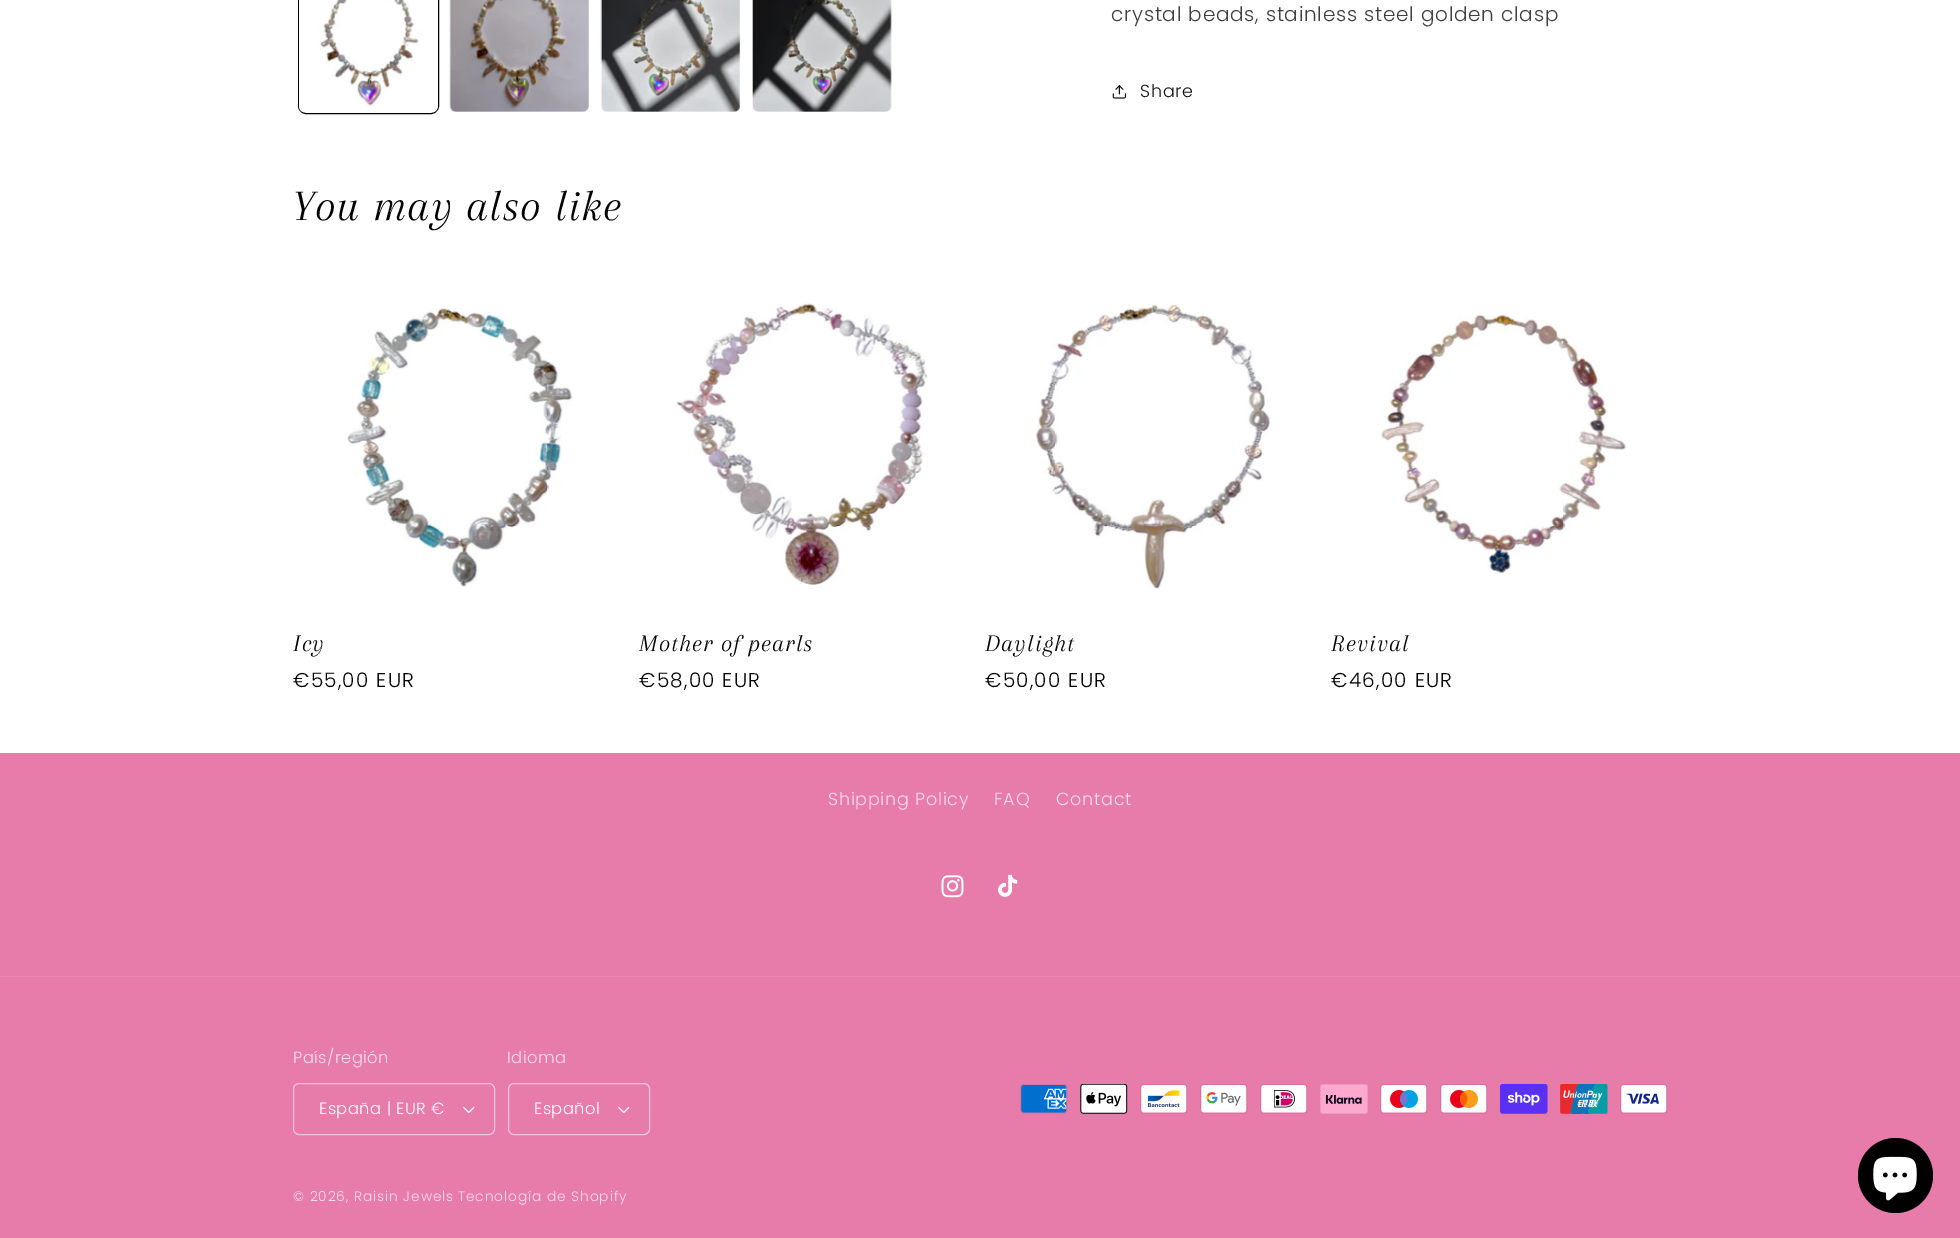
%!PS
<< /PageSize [1960 1238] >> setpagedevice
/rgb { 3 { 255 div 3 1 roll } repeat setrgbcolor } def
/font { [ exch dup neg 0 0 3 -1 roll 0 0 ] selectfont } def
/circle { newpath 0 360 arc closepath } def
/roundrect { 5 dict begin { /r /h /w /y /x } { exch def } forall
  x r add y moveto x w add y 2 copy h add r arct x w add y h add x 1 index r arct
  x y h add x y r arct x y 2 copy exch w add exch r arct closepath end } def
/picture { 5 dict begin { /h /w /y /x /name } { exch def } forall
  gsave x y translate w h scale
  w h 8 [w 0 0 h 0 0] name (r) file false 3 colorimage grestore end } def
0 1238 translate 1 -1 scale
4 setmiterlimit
255 255 255 rgb
0 0 1960 1238 rectfill
0 0 0 rgb
298.5 -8.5 140 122 7.5 roundrect stroke
(img/1.rgb) 299 0 139 112 picture
(img/2.rgb) 449 0 140 112 picture
(img/3.rgb) 600 0 141 112 picture
(img/4.rgb) 752 0 140 112 picture
(img/5.rgb) 1112 85 15 14 picture
(img/6.rgb) 347 308 226 279 picture
(img/7.rgb) 676 303 252 282 picture
(img/8.rgb) 1035 301 236 288 picture
(img/9.rgb) 1381 314 245 261 picture
231 123 170 rgb
0 753 1960 485 rectfill
(img/10.rgb) 941 875 23 23 picture
(img/11.rgb) 998 874 20 23 picture
233 134 177 rgb
0 976 1960 1 rectfill
(img/12.rgb) 463 1106 12 8 picture
244 196 217 rgb
293.5 1083.5 201 51 5.5 roundrect stroke
(img/12.rgb) 618 1106 12 8 picture
508.5 1083.5 141 51 5.5 roundrect stroke
(img/13.rgb) 1020 1084 48 30 picture
(img/14.rgb) 1080 1084 48 30 picture
(img/15.rgb) 1140 1084 48 30 picture
(img/16.rgb) 1200 1084 48 30 picture
(img/17.rgb) 1260 1084 48 30 picture
(img/18.rgb) 1320 1084 48 30 picture
(img/19.rgb) 1380 1084 48 30 picture
(img/20.rgb) 1440 1084 48 30 picture
(img/21.rgb) 1500 1084 48 30 picture
(img/22.rgb) 1560 1084 48 30 picture
(img/23.rgb) 1620 1084 48 30 picture
0 0 0 rgb
1895.5 1175.5 37.5 circle fill
(img/24.rgb) 1873 1156 44 45 picture
/Poppins-Light 20 font
64 64 64 rgb
1111 21 moveto 0.75 0 (crystal beads, stainless steel golden clasp) ashow
/Poppins-Light 17.5 font
18 18 18 rgb
1140 97 moveto 0.75 0 (Share) ashow
/Arapey-Italic 45 font
0 0 0 rgb
293 220 moveto 1.1 0 (You may also like) ashow
/Arapey-Italic 24.5 font
293 651 moveto 1.1 0 (Icy) ashow
/Poppins-Light 20 font
293 687 moveto 1.25 0 (€55,00 EUR) ashow
/Arapey-Italic 24.5 font
639 651 moveto 1.1 0 (Mother of pearls) ashow
/Poppins-Light 20 font
639 687 moveto 1.25 0 (€58,00 EUR) ashow
/Arapey-Italic 24.5 font
985 651 moveto 1.1 0 (Daylight) ashow
/Poppins-Light 20 font
985 687 moveto 1.25 0 (€50,00 EUR) ashow
/Arapey-Italic 24.5 font
1331 651 moveto 1.1 0 (Revival) ashow
/Poppins-Light 20 font
1331 687 moveto 1.25 0 (€46,00 EUR) ashow
/Poppins-Light 17.5 font
249 222 234 rgb
828 805 moveto 0.75 0 (Shipping Policy) ashow
994 805 moveto 0.75 0 (FAQ) ashow
1056 805 moveto 0.75 0 (Contact) ashow
/Poppins-Light 16.25 font
293 1063 moveto 0.5 0 (País/región) ashow
255 255 255 rgb
319 1114 moveto 0.5 0 (España | EUR €) ashow
249 222 234 rgb
507 1063 moveto 0.5 0 (Idioma) ashow
255 255 255 rgb
534 1114 moveto 0.5 0 (Español) ashow
/Poppins-Light 13.75 font
249 222 234 rgb
293 1201 moveto 0.9 0 (© 2026, Raisin Jewels) ashow
458 1201 moveto 0.9 0 (Tecnología de Shopify) ashow
showpage
